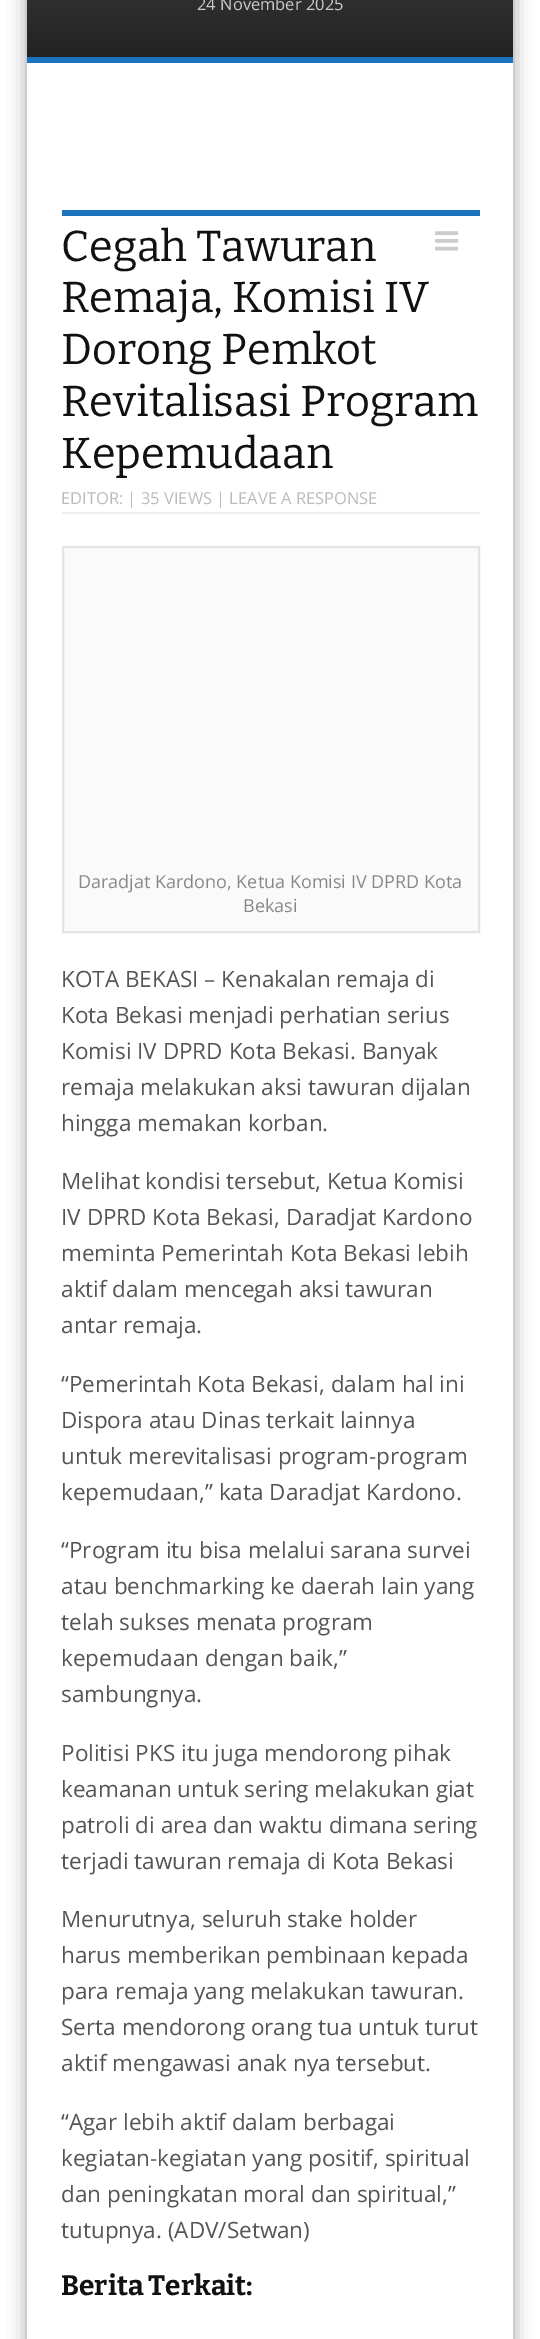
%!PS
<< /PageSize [540 2339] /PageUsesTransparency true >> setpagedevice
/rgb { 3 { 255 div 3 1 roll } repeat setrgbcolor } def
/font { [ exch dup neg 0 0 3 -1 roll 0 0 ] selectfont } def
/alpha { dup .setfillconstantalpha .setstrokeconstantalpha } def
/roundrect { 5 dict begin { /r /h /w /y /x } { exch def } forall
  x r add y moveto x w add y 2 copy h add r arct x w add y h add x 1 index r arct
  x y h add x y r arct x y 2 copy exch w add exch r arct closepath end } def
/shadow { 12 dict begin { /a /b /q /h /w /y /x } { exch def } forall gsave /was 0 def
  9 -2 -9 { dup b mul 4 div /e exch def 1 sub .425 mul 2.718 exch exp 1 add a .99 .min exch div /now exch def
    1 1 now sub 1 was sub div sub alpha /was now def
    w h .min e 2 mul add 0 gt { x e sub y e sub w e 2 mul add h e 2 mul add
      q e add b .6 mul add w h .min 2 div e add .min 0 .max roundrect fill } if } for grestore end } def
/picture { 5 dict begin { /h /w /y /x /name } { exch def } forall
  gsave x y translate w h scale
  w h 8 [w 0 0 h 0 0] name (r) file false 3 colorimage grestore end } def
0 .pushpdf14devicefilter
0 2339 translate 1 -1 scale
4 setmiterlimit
255 255 255 rgb
0 0 540 2339 rectfill
gsave
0 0 moveto 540 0 lineto 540 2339 lineto 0 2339 lineto closepath 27 -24 moveto 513 -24 lineto 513 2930 lineto 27 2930 lineto closepath eoclip newpath
0 0 0 rgb
27 -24 486 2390 0 9 0.4 shadow
grestore
gsave 27 0 moveto 513 0 lineto 513 57 lineto 27 57 lineto closepath clip newpath
<< /ShadingType 2 /ColorSpace /DeviceRGB /Coords [270 -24 270 57] /Extend [true true] /Function << /FunctionType 2 /Domain [0 1] /C0 [0.204 0.204 0.204] /C1 [0.133 0.133 0.133] /N 1 >> >> shfill grestore
30 115 190 rgb
27 57 486 6 rectfill
62 210 418 6 rectfill
(img/1.rgb) 435 231 24 20 picture
238 238 238 rgb
62 512 418 2 rectfill
250 250 250 rgb
63 547 moveto 479 547 lineto 479 932 lineto 63 932 lineto closepath gsave fill grestore
228 228 228 rgb
2 setlinewidth
stroke
/OpenSans-Regular 16.5 font
204 204 204 rgb
197 10 moveto (24 November 2025) show
/Bitter-Regular 43.25 font
17 17 17 rgb
[
  [(Cegah Tawuran) 61 261]
  [(Remaja, Komisi IV) 61 312]
  [(Dorong Pemkot) 61 364]
  [(Revitalisasi Program) 61 416]
  [(Kepemudaan) 61 468]
] { aload pop moveto show } forall
/OpenSans-Regular 16.5 font
187 187 187 rgb
61 504 moveto (EDITOR: | 35 VIEWS | LEAVE A RESPONSE) show
/OpenSans-Regular 18 font
136 136 136 rgb
78 888 moveto (Daradjat Kardono, Ketua Komisi IV DPRD Kota) show
243 912 moveto (Bekasi) show
/OpenSans-Regular 22.5 font
85 85 85 rgb
[
  [(KOTA BEKASI – Kenakalan remaja di) 61 987]
  [(Kota Bekasi menjadi perhatian serius) 61 1023]
  [(Komisi IV DPRD Kota Bekasi. Banyak) 61 1059]
  [(remaja melakukan aksi tawuran dijalan) 61 1095]
  [(hingga memakan korban.) 61 1131]
  [(Melihat kondisi tersebut, Ketua Komisi) 61 1189]
  [(IV DPRD Kota Bekasi, Daradjat Kardono) 61 1225]
  [(meminta Pemerintah Kota Bekasi lebih) 61 1261]
  [(aktif dalam mencegah aksi tawuran) 61 1297]
  [(antar remaja.) 61 1333]
  [(“Pemerintah Kota Bekasi, dalam hal ini) 61 1392]
  [(Dispora atau Dinas terkait lainnya) 61 1428]
  [(untuk merevitalisasi program-program) 61 1464]
  [(kepemudaan,” kata Daradjat Kardono.) 61 1500]
  [(“Program itu bisa melalui sarana survei) 61 1558]
  [(atau benchmarking ke daerah lain yang) 61 1594]
  [(telah sukses menata program) 61 1630]
  [(kepemudaan dengan baik,”) 61 1666]
  [(sambungnya.) 61 1702]
  [(Politisi PKS itu juga mendorong pihak) 61 1761]
  [(keamanan untuk sering melakukan giat) 61 1797]
  [(patroli di area dan waktu dimana sering) 61 1833]
  [(terjadi tawuran remaja di Kota Bekasi) 61 1869]
  [(Menurutnya, seluruh stake holder) 61 1927]
  [(harus memberikan pembinaan kepada) 61 1963]
  [(para remaja yang melakukan tawuran.) 61 1999]
  [(Serta mendorong orang tua untuk turut) 61 2035]
  [(aktif mengawasi anak nya tersebut.) 61 2071]
  [(“Agar lebih aktif dalam berbagai) 61 2130]
  [(kegiatan-kegiatan yang positif, spiritual) 61 2166]
  [(dan peningkatan moral dan spiritual,”) 61 2202]
  [(tutupnya. \(ADV/Setwan\)) 61 2238]
] { aload pop moveto show } forall
/Bitter-Bold 28 font
17 17 17 rgb
61 2295 moveto (Berita Terkait:) show
.poppdf14devicefilter showpage
